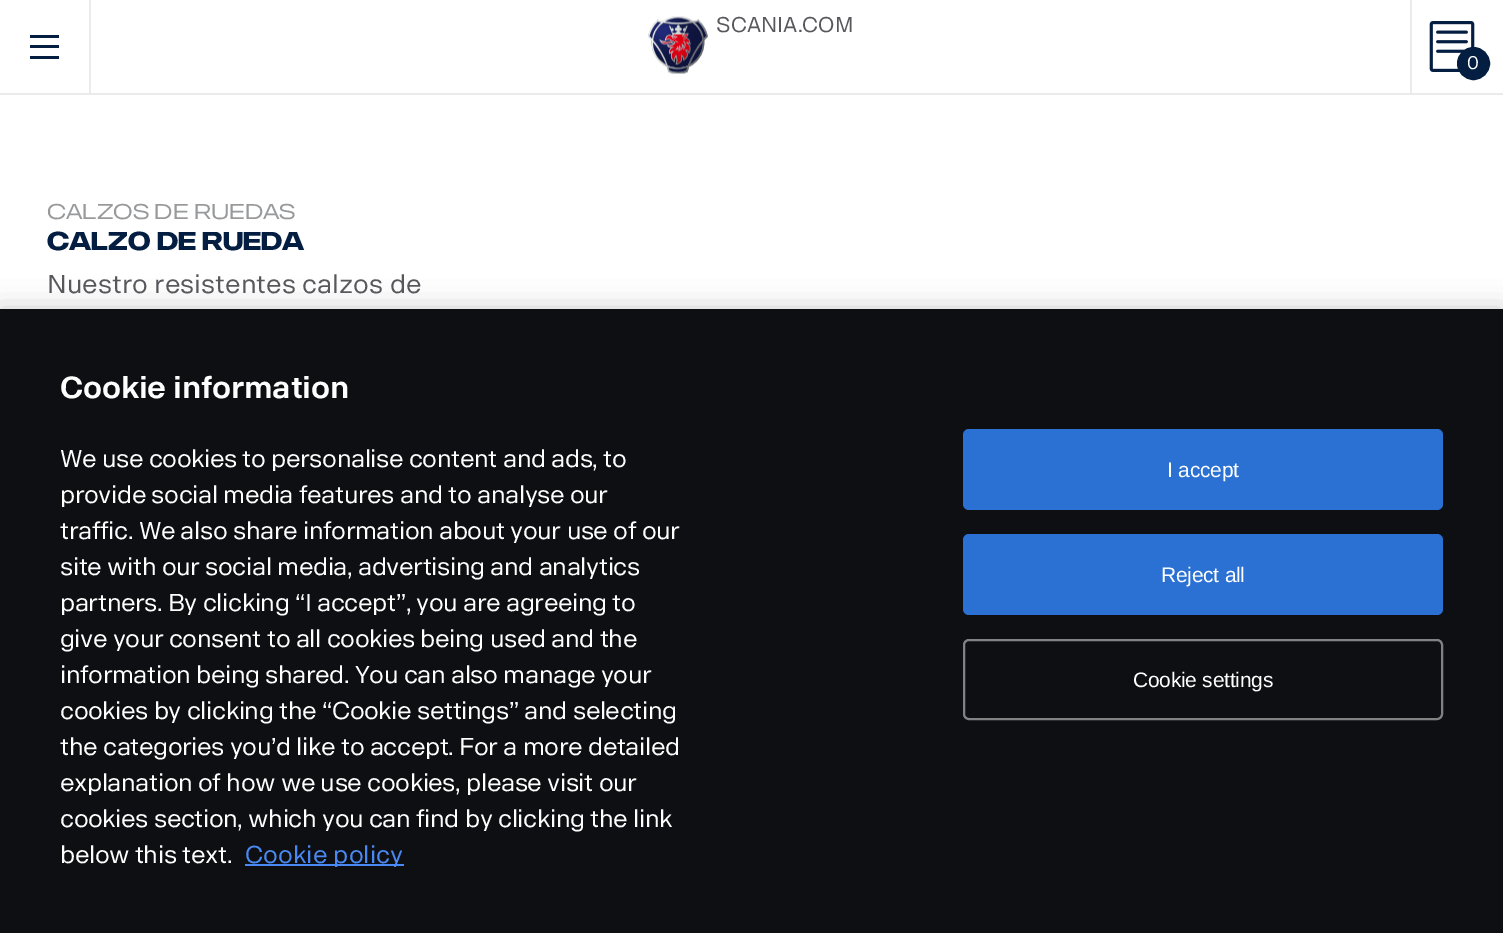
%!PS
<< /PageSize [1503 933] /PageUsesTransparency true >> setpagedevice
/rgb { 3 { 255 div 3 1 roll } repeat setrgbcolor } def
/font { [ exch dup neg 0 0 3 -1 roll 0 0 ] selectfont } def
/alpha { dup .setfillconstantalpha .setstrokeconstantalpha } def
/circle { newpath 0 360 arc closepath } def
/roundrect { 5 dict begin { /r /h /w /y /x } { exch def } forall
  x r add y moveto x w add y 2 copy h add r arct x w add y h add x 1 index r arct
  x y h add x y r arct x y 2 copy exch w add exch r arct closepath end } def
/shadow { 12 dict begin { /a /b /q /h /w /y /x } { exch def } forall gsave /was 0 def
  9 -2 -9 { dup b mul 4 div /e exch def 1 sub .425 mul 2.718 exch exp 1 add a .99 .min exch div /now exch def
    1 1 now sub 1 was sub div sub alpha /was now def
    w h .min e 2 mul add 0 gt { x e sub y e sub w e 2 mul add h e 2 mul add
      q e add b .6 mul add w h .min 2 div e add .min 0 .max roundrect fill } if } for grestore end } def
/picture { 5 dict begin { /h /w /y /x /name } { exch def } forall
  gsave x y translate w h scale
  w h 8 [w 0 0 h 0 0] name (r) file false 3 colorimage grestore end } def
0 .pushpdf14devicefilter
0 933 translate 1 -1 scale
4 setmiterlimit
255 255 255 rgb
0 0 1503 933 rectfill
[
  [0 93 1503 2 235 235 235]
  [89 0 2 93 235 235 235]
  [30 35 29 3 4 30 66]
  [30 45 29 3 4 30 66]
  [30 56 29 3 4 30 66]
] { aload pop rgb rectfill } forall
(img/1.rgb) 648 16 60 58 picture
235 235 235 rgb
1410 0 2 93 rectfill
(img/2.rgb) 1429 21 46 51 picture
4 30 66 rgb
1473.5 63.5 15 circle gsave fill grestore
3 setlinewidth
stroke
0 0 0 rgb
0 309 1503 624 0 13.5 0.2 shadow
13 15 19 rgb
0 309 1503 624 rectfill
74 137 243 rgb
245 864 159 2 rectfill
43 112 211 rgb
963 429 480 81 6 roundrect fill
963 534 480 81 6 roundrect fill
129 130 132 rgb
2 setlinewidth
964 640 478 79 5 roundrect stroke
/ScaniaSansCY-Regular 21 font
88 87 91 rgb
716 32 moveto (SCANIA.COM) show
/ScaniaSansCY-Regular 18 font
255 255 255 rgb
1467 69 moveto (0) show
/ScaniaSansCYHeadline-Regular 21 font
151 153 155 rgb
47 219 moveto (CALZOS DE RUEDAS) show
/ScaniaSansCYHeadline-Bold 25.5 font
4 30 66 rgb
47 250 moveto (Calzo de rueda) show
/ScaniaSansCY-Regular 25.5 font
88 87 91 rgb
47 293 moveto (Nuestro resistentes calzos de) show
/ScaniaSansCY-Bold 30 font
255 255 255 rgb
60 398 moveto -0.25 0 (Cookie information) ashow
/ScaniaSansCY-Regular 24 font
60 467 moveto -0.48 0 (We use cookies to personalise content and ads, to) ashow
60 503 moveto -0.48 0 (provide social media features and to analyse our) ashow
60 539 moveto -0.48 0 (traffic. We also share information about your use of our) ashow
60 575 moveto -0.48 0 (site with our social media, advertising and analytics) ashow
60 611 moveto -0.48 0 (partners. By clicking “I accept”, you are agreeing to) ashow
60 647 moveto -0.48 0 (give your consent to all cookies being used and the) ashow
60 683 moveto -0.48 0 (information being shared. You can also manage your) ashow
60 719 moveto -0.48 0 (cookies by clicking the “Cookie settings” and selecting) ashow
60 755 moveto -0.48 0 (the categories you’d like to accept. For a more detailed) ashow
60 791 moveto -0.48 0 (explanation of how we use cookies, please visit our) ashow
60 827 moveto -0.48 0 (cookies section, which you can find by clicking the link) ashow
60 863 moveto -0.48 0 (below this text.) ashow
74 137 243 rgb
245 863 moveto (Cookie policy) show
/LiberationSans-Regular 21 font
255 255 255 rgb
1167 477 moveto -0.25 0 (I accept) ashow
1161 582 moveto -0.25 0 (Reject all) ashow
1133 687 moveto -0.25 0 (Cookie settings) ashow
.poppdf14devicefilter showpage
